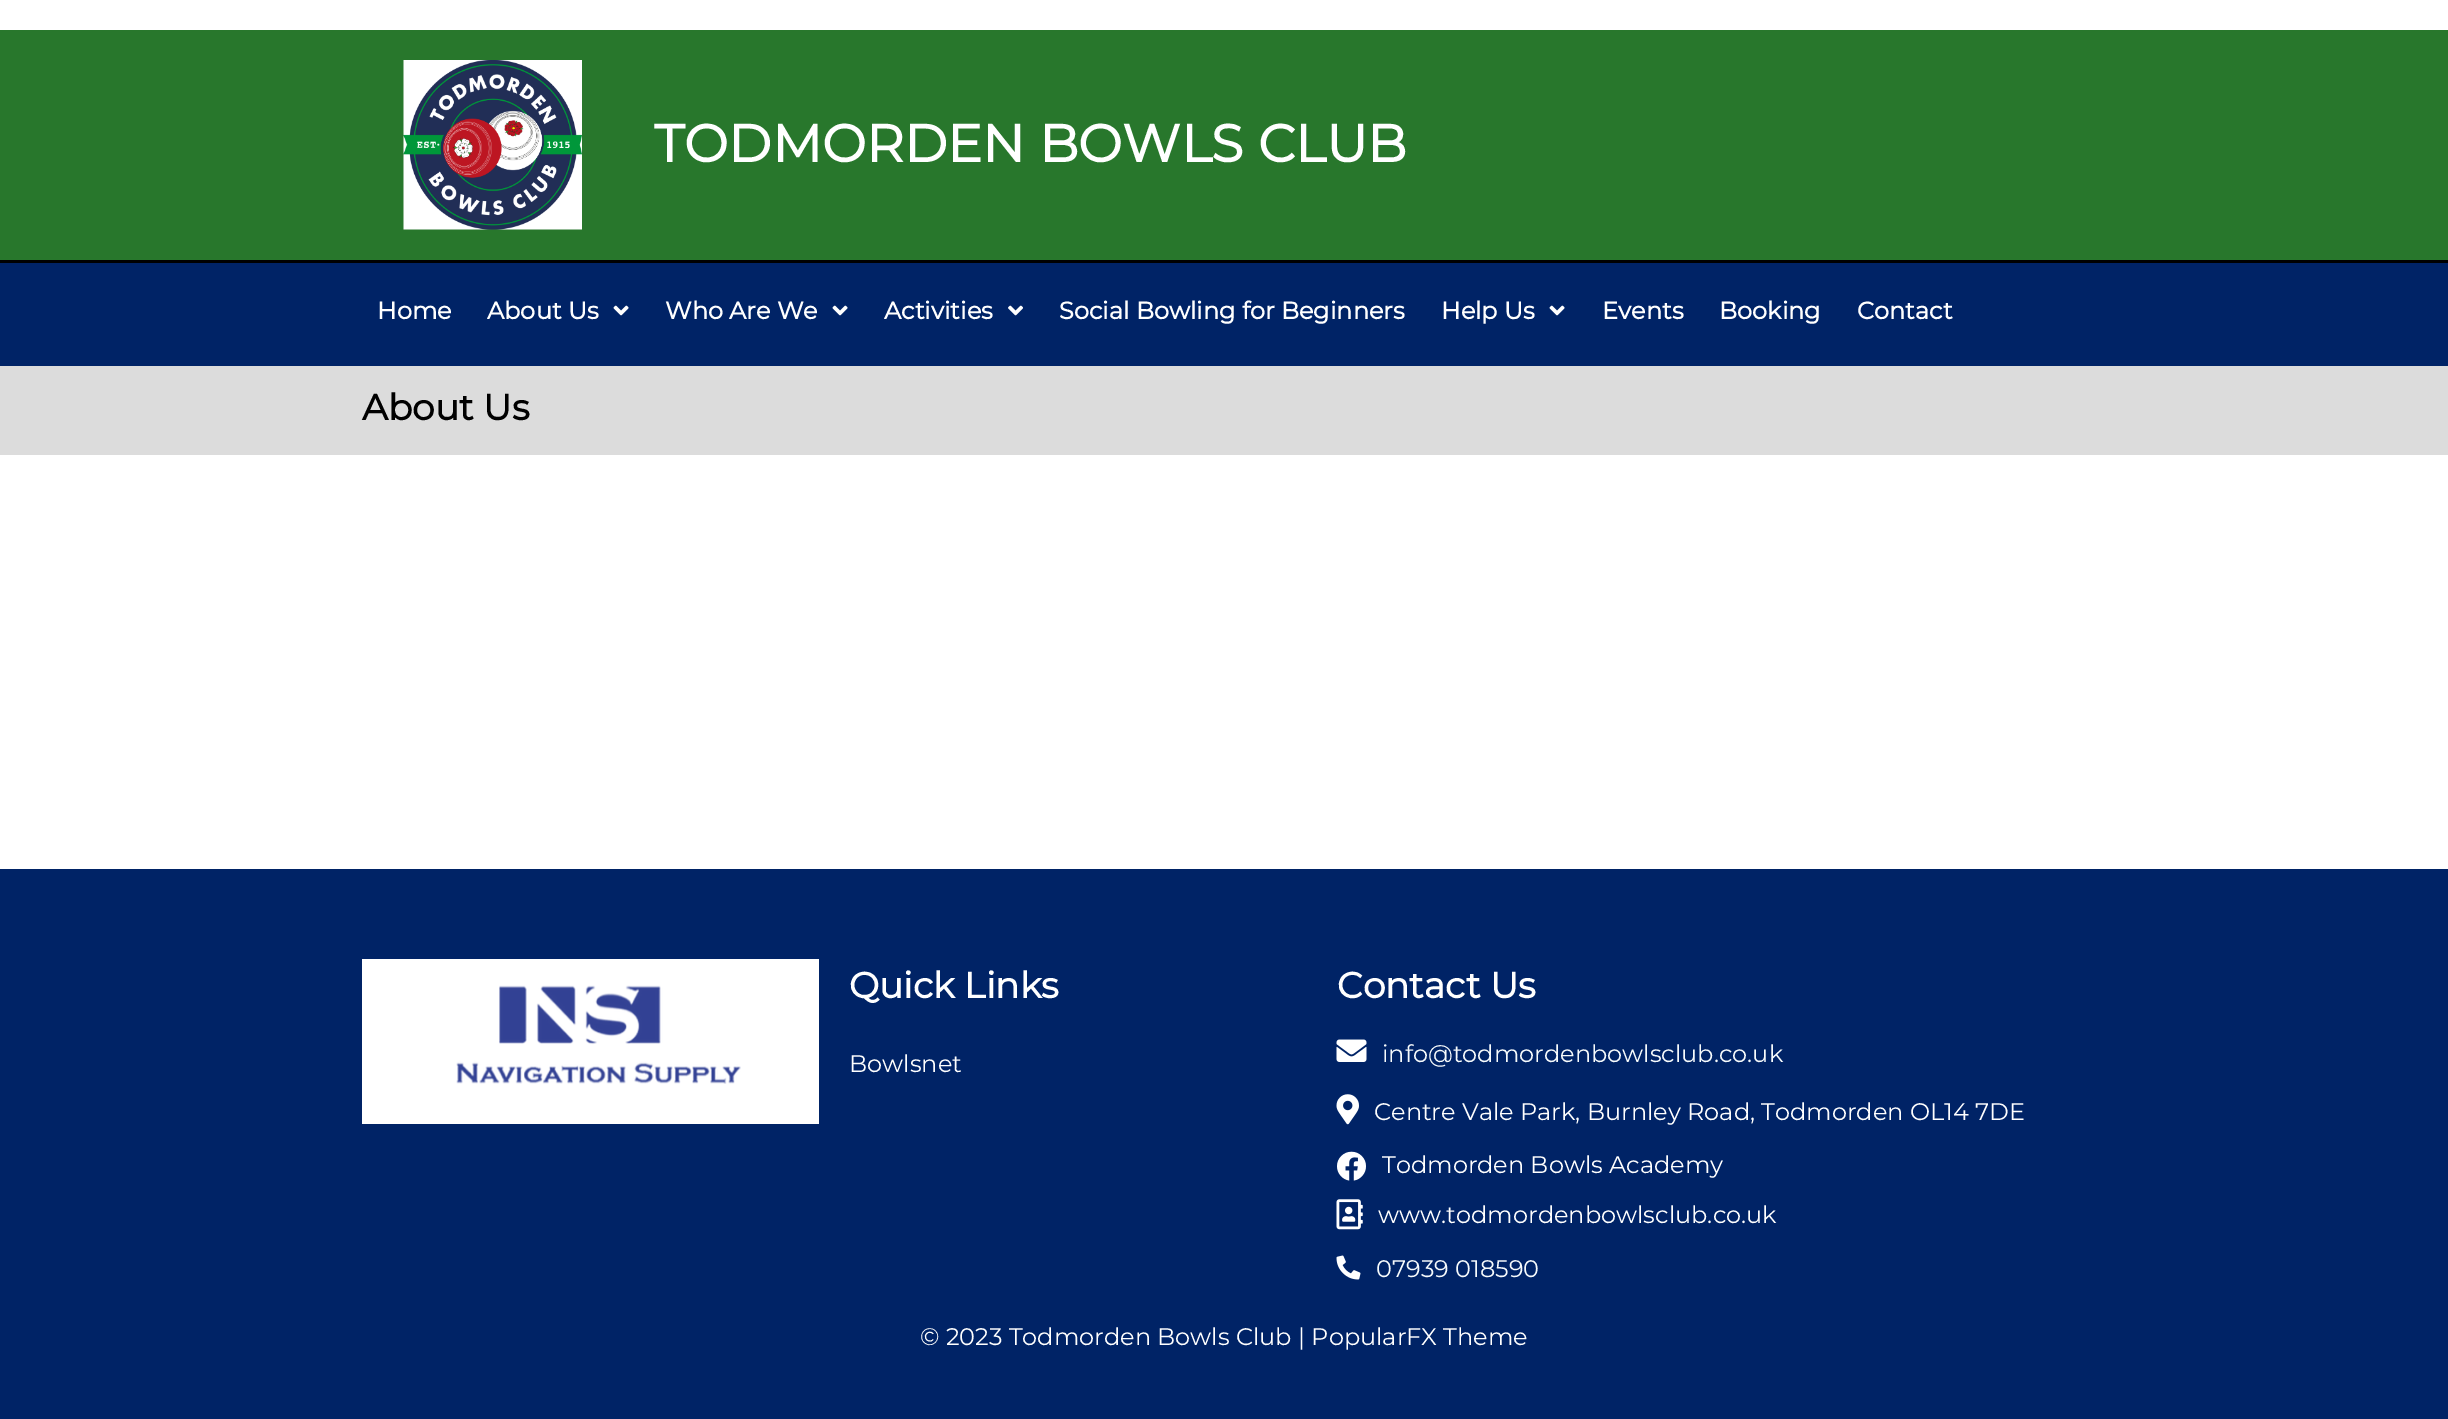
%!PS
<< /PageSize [2448 1419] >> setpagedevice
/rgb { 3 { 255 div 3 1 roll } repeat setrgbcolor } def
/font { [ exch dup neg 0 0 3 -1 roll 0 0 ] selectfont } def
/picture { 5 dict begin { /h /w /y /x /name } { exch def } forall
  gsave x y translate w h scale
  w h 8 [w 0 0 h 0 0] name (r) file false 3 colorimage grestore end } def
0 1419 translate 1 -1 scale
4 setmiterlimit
255 255 255 rgb
0 0 2448 1419 rectfill
40 119 44 rgb
0 30 2448 230 rectfill
0 0 0 rgb
0 260 2448 3 rectfill
(img/1.rgb) 403 60 179 170 picture
0 35 102 rgb
0 263 2448 103 rectfill
(img/2.rgb) 613 305 16 11 picture
(img/2.rgb) 832 305 16 11 picture
(img/3.rgb) 1008 305 15 11 picture
(img/2.rgb) 1549 305 16 11 picture
[
  [0 366 2448 89 220 220 220]
  [0 869 2448 550 0 35 102]
  [362 959 457 165 255 255 255]
] { aload pop rgb rectfill } forall
(img/4.rgb) 456 985 285 99 picture
(img/5.rgb) 1336 1039 31 23 picture
(img/6.rgb) 1336 1094 23 31 picture
(img/7.rgb) 1337 1151 29 30 picture
(img/8.rgb) 1336 1199 27 31 picture
(img/9.rgb) 1336 1255 25 25 picture
/Montserrat-Bold 52.5 font
654 162 moveto (TODMORDEN BOWLS CLUB) show
/Montserrat-Bold 24 font
[
  [(Home) 377 319]
  [(About Us) 487 319]
  [(Who Are We) 665 319]
  [(Activities) 884 319]
  [(Social Bowling for Beginners) 1059 319]
  [(Help Us) 1441 319]
  [(Events) 1602 319]
  [(Booking) 1719 319]
  [(Contact) 1857 319]
] { aload pop moveto show } forall
/Montserrat-Bold 36 font
0 0 0 rgb
362 420 moveto (About Us) show
255 255 255 rgb
849 998 moveto (Quick Links) show
/Montserrat-Thin 24 font
849 1072 moveto (Bowlsnet) show
/Montserrat-Bold 36 font
1337 998 moveto (Contact Us) show
/Montserrat-Thin 24 font
247 251 252 rgb
1382 1062 moveto (info@todmordenbowlsclub.co.uk) show
255 255 255 rgb
[
  [(Centre Vale Park, Burnley Road, Todmorden OL14 7DE) 1374 1120]
  [(Todmorden Bowls Academy) 1382 1173]
  [(www.todmordenbowlsclub.co.uk) 1378 1223]
] { aload pop moveto show } forall
247 251 252 rgb
1376 1277 moveto (07939 018590) show
255 255 255 rgb
920 1345 moveto (© 2023 Todmorden Bowls Club | PopularFX Theme) show
showpage
